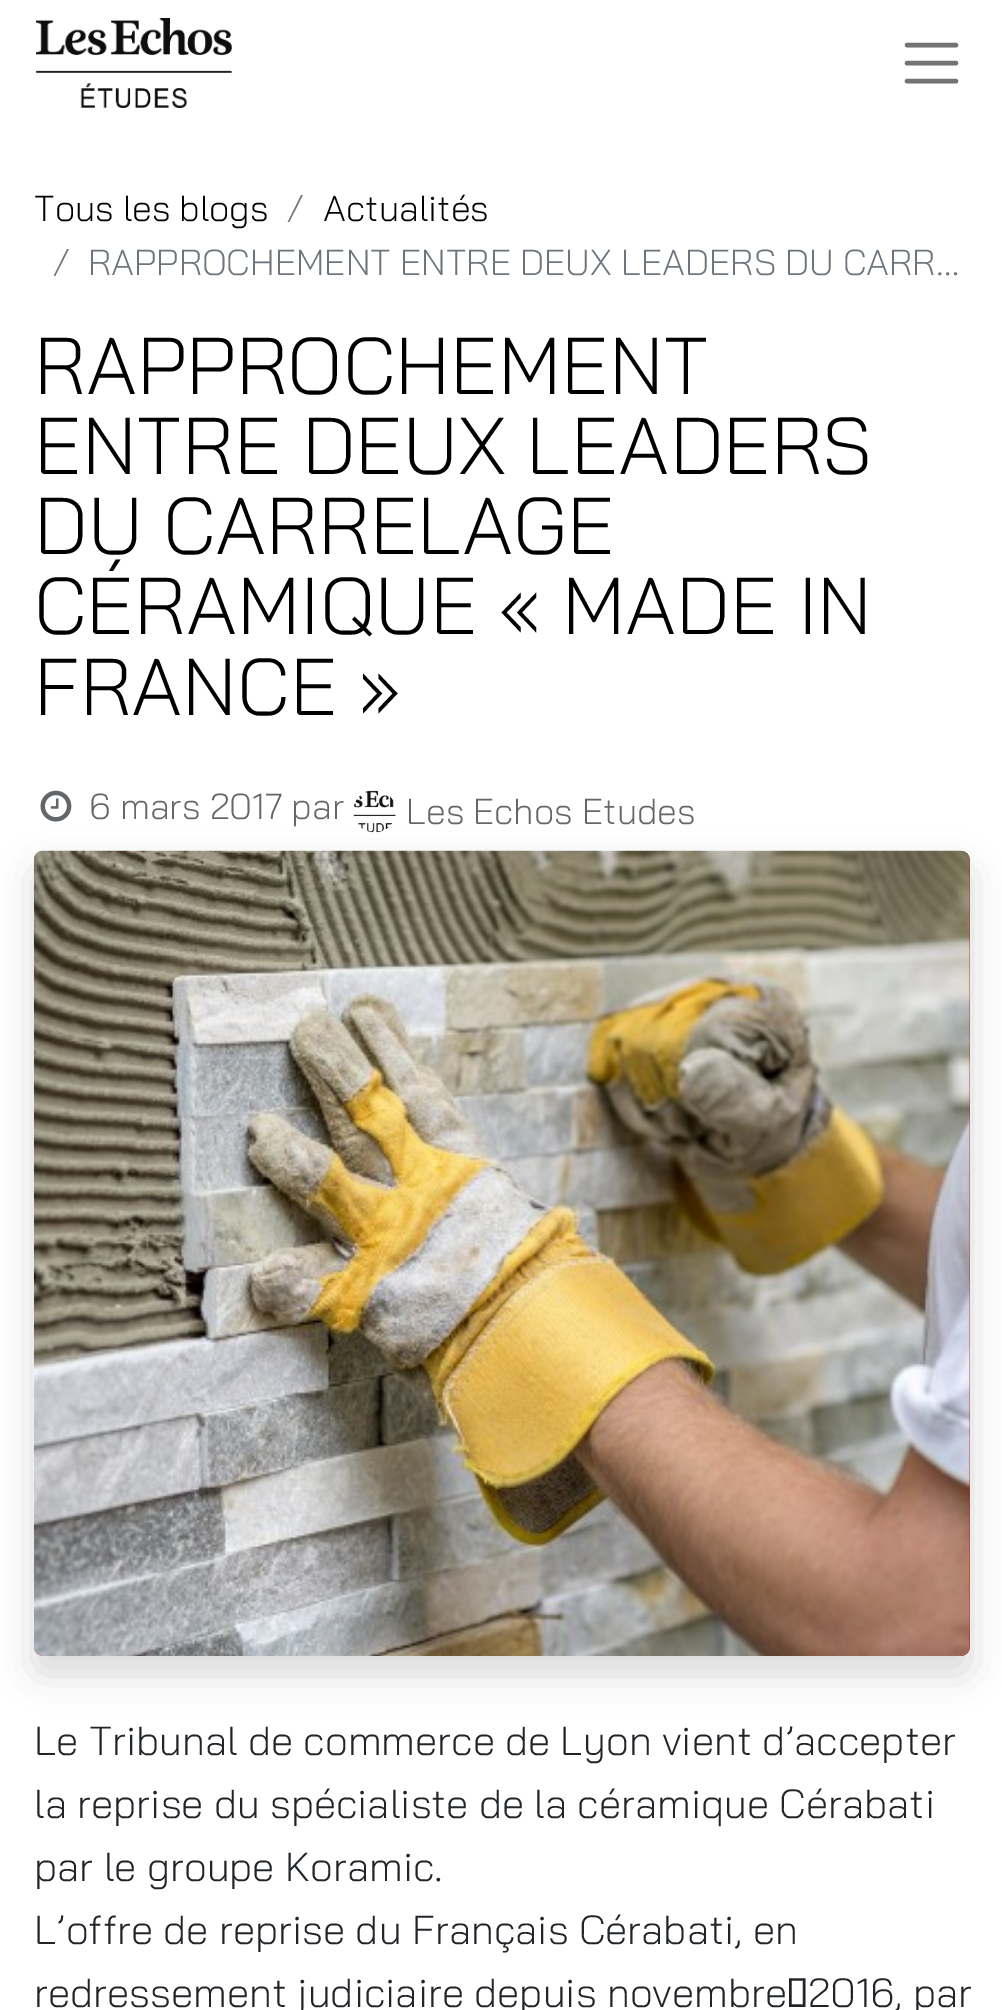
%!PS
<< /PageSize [1002 2010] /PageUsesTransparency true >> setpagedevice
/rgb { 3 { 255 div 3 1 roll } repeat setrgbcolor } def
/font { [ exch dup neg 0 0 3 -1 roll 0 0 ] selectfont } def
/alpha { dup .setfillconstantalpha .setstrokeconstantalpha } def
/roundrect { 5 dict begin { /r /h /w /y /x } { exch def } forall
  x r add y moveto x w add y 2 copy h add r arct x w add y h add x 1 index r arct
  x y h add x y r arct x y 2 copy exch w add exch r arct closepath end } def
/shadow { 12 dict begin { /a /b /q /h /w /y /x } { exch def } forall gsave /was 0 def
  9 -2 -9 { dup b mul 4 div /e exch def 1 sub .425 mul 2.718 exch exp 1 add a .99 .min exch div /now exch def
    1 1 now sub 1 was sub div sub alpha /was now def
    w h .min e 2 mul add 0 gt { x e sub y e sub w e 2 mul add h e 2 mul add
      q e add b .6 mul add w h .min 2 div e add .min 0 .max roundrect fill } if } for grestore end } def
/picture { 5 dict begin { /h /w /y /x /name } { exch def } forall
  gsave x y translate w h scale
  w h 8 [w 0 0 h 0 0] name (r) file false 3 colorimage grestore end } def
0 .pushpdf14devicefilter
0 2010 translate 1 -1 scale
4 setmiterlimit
255 255 255 rgb
0 0 1002 2010 rectfill
(img/1.rgb) 36 18 196 90 picture
115 115 115 rgb
4.5 setlinewidth
1 setlinecap
907 45 moveto 956 45 lineto 907 63 moveto 956 63 lineto 907 81 moveto 956 81 lineto stroke
(img/2.rgb) 40 790 32 32 picture
(img/3.rgb) 353 790 43 43 picture
0 0 0 rgb
34 869 936 805 9 18 0.15 shadow
207 35 31 rgb
34 851 936 805 9 roundrect fill
(img/4.rgb) 33 850 937 806 picture
/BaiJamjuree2-Light 36 font
0 0 0 rgb
34 221 moveto (Tous les blogs) show
108 117 125 rgb
286 221 moveto (/) show
0 0 0 rgb
323 221 moveto (Actualités) show
108 117 125 rgb
52 275 moveto (/) show
88 275 moveto (RAPPROCHEMENT ENTRE DEUX LEADERS DU CARR…) show
/BaiJamjuree-Light 80.25 font
0 0 0 rgb
[
  [(RAPPROCHEMENT) 34 394]
  [(ENTRE DEUX LEADERS) 34 474]
  [(DU CARRELAGE) 34 554]
  [(CÉRAMIQUE « MADE IN) 34 634]
  [(FRANCE ») 34 715]
] { aload pop moveto show } forall
/BaiJamjuree2-Light 36 font
100 102 105 rgb
89 819 moveto (6 mars 2017 par) show
406 824 moveto (Les Echos Etudes) show
/BaiJamjuree-Light 40.5 font
33 37 41 rgb
[
  [(Le Tribunal de commerce de Lyon vient d’accepter) 34 1755]
  [(la reprise du spécialiste de la céramique Cérabati) 34 1818]
  [(par le groupe Koramic.) 34 1881]
  [(L’offre de reprise du Français Cérabati, en) 34 1944]
  [(redressement judiciaire depuis novembre 2016, par) 34 2007]
] { aload pop moveto show } forall
.poppdf14devicefilter showpage
